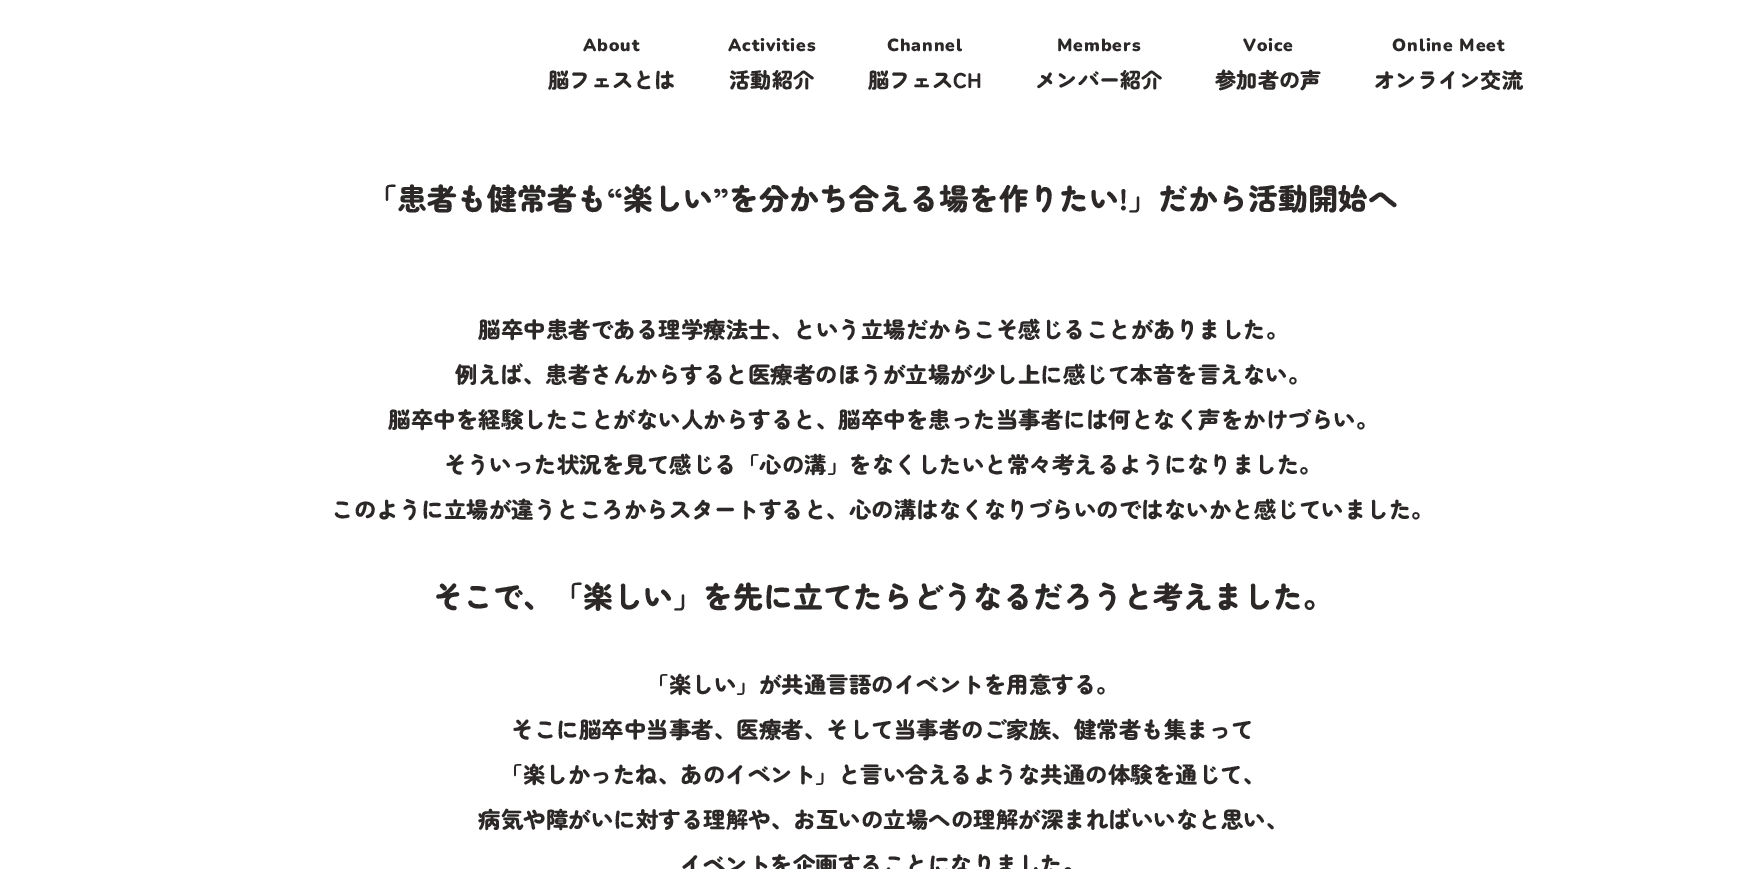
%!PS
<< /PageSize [1764 869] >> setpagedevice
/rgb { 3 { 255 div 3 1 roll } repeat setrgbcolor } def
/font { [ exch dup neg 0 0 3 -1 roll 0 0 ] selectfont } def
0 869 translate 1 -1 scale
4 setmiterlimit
255 255 255 rgb
0 0 1764 869 rectfill
/Nunito-ExtraLight 17.5 font
43 40 39 rgb
583 51 moveto 0.9 0 (About) ashow
/ZenMaruGothic-Black 21.25 font
548 88 moveto (脳フェスとは) show
/Nunito-ExtraLight 17.5 font
728 51 moveto 0.9 0 (Activities) ashow
/ZenMaruGothic-Black 21.25 font
729 88 moveto (活動紹介) show
/Nunito-ExtraLight 17.5 font
887 51 moveto 0.9 0 (Channel) ashow
/ZenMaruGothic-Black 21.25 font
868 88 moveto (脳フェスCH) show
/Nunito-ExtraLight 17.5 font
1057 51 moveto 0.9 0 (Members) ashow
/ZenMaruGothic-Black 21.25 font
1035 88 moveto (メンバー紹介) show
/Nunito-ExtraLight 17.5 font
1243 51 moveto 0.9 0 (Voice) ashow
/ZenMaruGothic-Black 21.25 font
1215 88 moveto (参加者の声) show
/Nunito-ExtraLight 17.5 font
1392 51 moveto 0.9 0 (Online Meet) ashow
/ZenMaruGothic-Black 21.25 font
1374 88 moveto (オンライン交流) show
/ZenMaruGothic-Black 30 font
367 210 moveto (「患者も健常者も“楽しい”を分かち合える場を作りたい!」だから活動開始へ) show
/ZenMaruGothic-Black 22.5 font
[
  [(脳卒中患者である理学療法士、という立場だからこそ感じることがありました。) 478 338]
  [(例えば、患者さんからすると医療者のほうが立場が少し上に感じて本音を言えない。) 455 383]
  [(脳卒中を経験したことがない人からすると、脳卒中を患った当事者には何となく声をかけづらい。) 388 428]
  [(そういった状況を見て感じる「心の溝」をなくしたいと常々考えるようになりました。) 444 473]
  [(このように立場が違うところからスタートすると、心の溝はなくなりづらいのではないかと感じていました。) 331 518]
] { aload pop moveto show } forall
/ZenMaruGothic-Black 30 font
433 608 moveto (そこで、「楽しい」を先に立てたらどうなるだろうと考えました。) show
/ZenMaruGothic-Black 22.5 font
[
  [(「楽しい」が共通言語のイベントを用意する。) 646 693]
  [(そこに脳卒中当事者、医療者、そして当事者のご家族、健常者も集まって) 511 738]
  [(「楽しかったね、あのイベント」と言い合えるような共通の体験を通じて、) 500 783]
  [(病気や障がいに対する理解や、お互いの立場への理解が深まればいいなと思い、) 478 828]
  [(イベントを企画することになりました。) 680 873]
] { aload pop moveto show } forall
showpage
